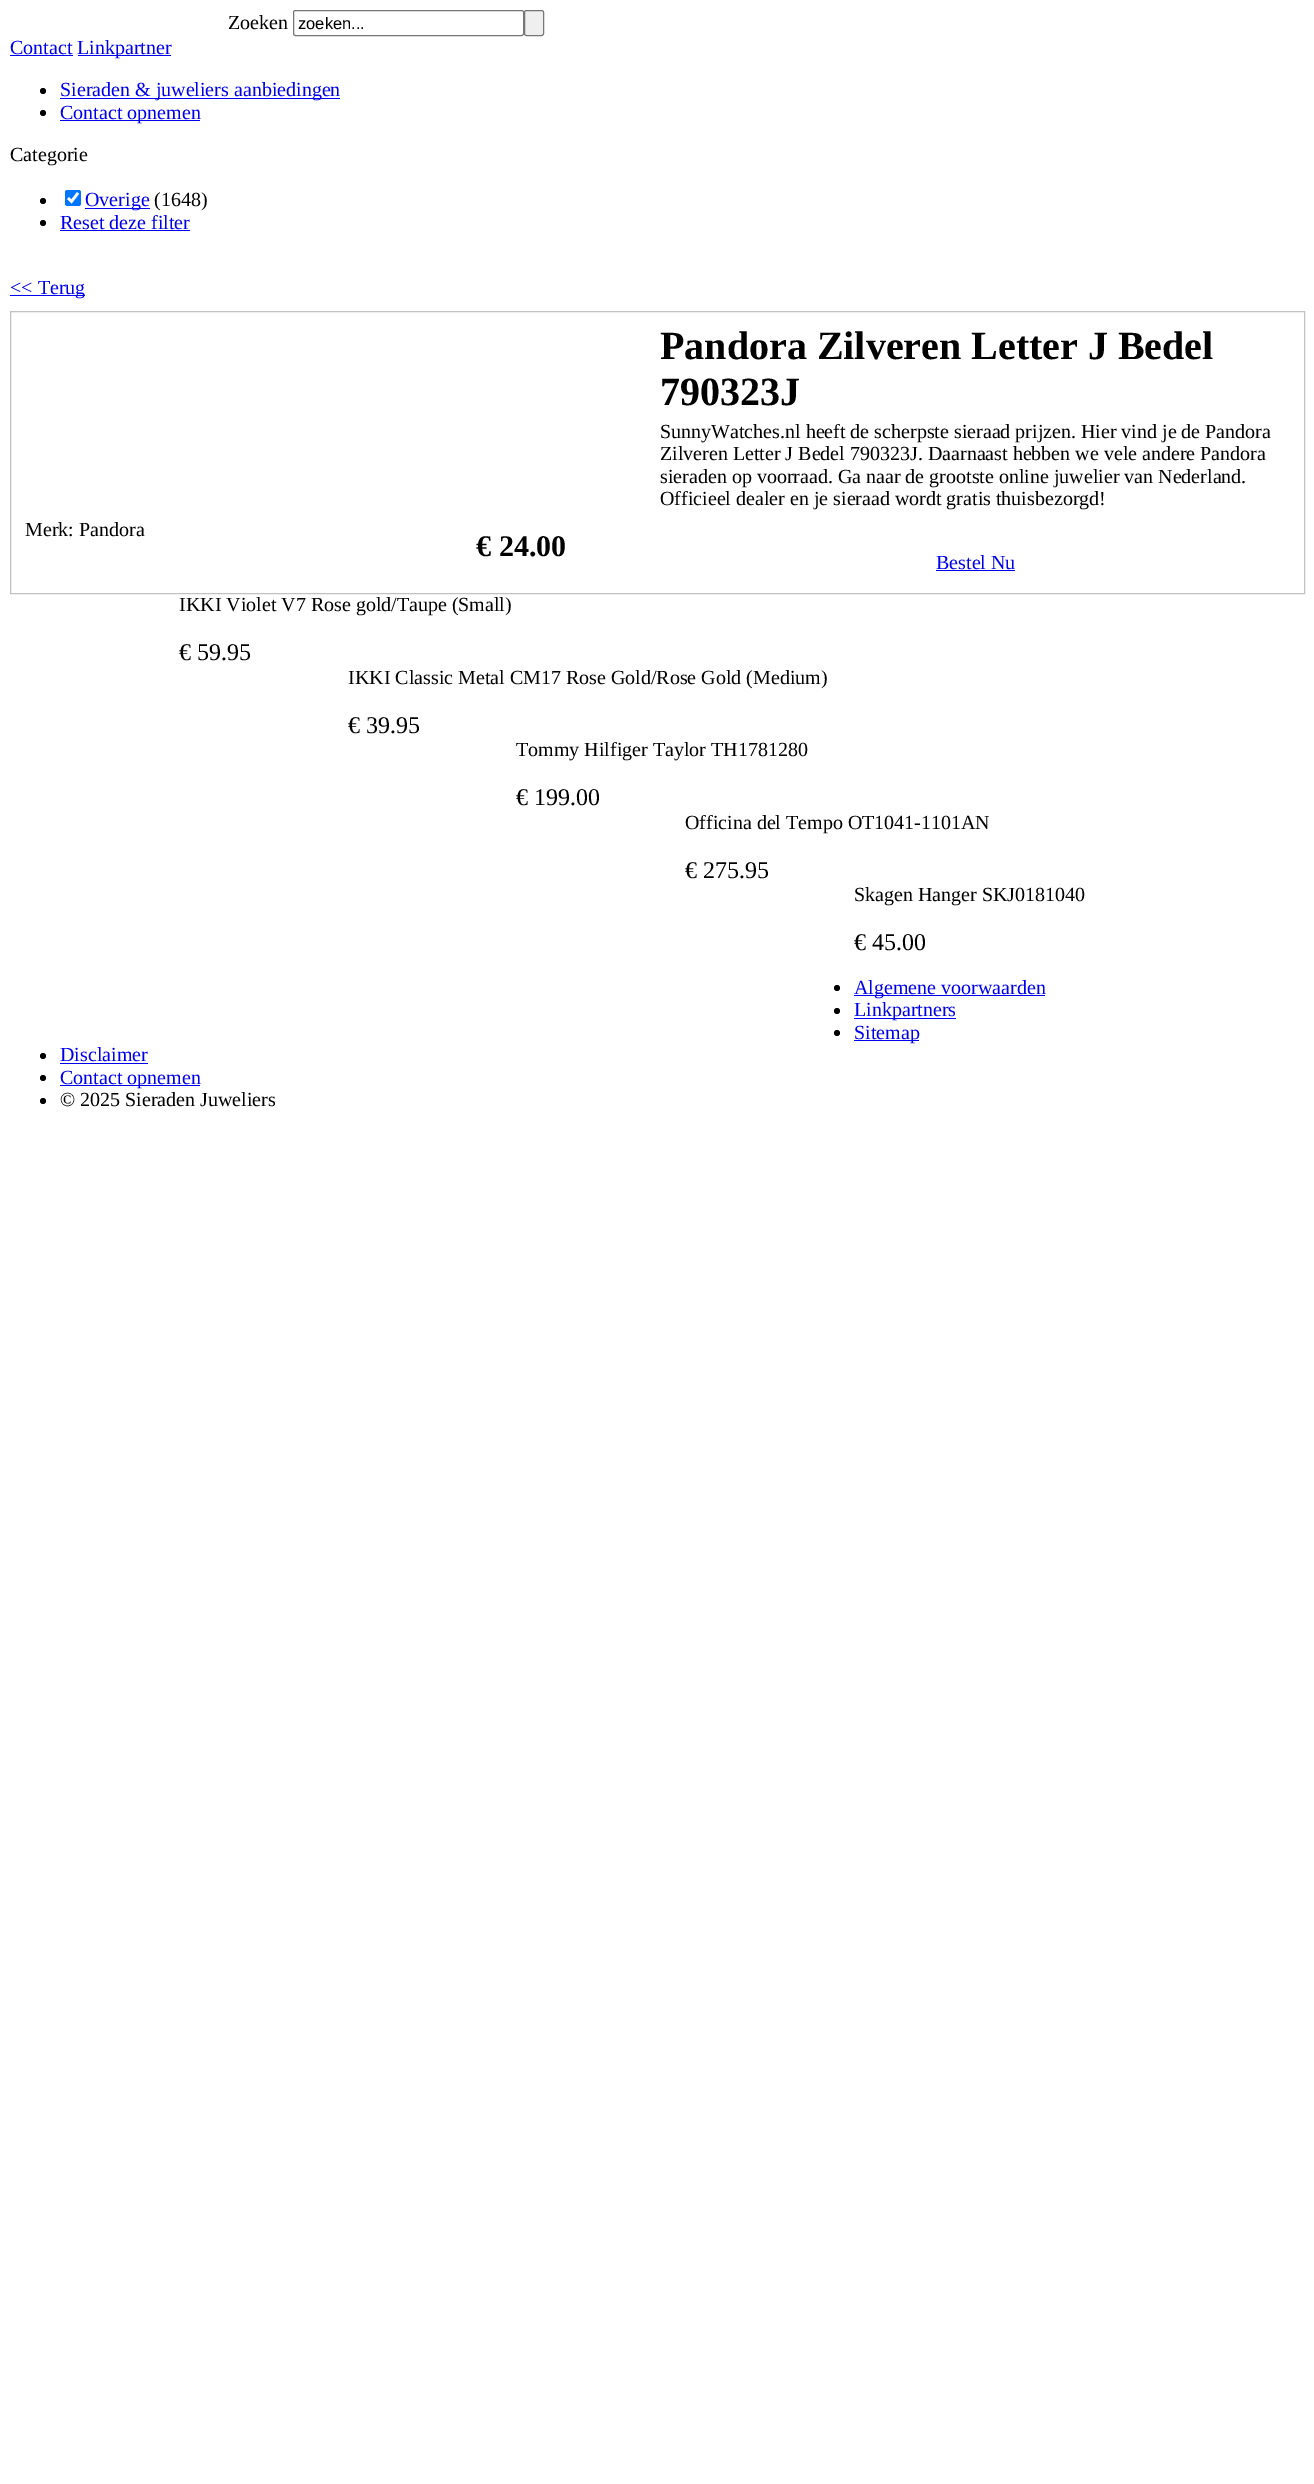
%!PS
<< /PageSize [1314 2484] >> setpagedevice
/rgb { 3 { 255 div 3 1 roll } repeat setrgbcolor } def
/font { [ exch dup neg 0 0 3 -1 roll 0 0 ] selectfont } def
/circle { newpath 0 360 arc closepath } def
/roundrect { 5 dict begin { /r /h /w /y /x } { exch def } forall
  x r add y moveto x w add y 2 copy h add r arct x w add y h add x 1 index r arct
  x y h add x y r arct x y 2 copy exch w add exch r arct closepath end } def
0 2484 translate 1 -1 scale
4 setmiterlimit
255 255 255 rgb
0 0 1314 2484 rectfill
118 118 118 rgb
293.5 10.5 230 25 2 roundrect stroke
239 239 239 rgb
524.5 10.5 19 25 2 roundrect gsave fill grestore
118 118 118 rgb
stroke
0 0 238 rgb
10 55 63 1 rectfill
78 55 93 1 rectfill
0 0 0 rgb
43 91 3 circle fill
0 0 238 rgb
60 98 280 1 rectfill
0 0 0 rgb
43 113 3 circle fill
0 0 238 rgb
60 120 140 1 rectfill
0 0 0 rgb
43 201 3 circle fill
0 117 255 rgb
65 190 16 16 2.5 roundrect fill
255 255 255 rgb
2.6 setlinewidth
68 198 moveto 71.5 201.5 lineto 78 193 lineto stroke
0 0 238 rgb
85 208 65 1 rectfill
0 0 0 rgb
43 223 3 circle fill
0 0 238 rgb
60 230 130 1 rectfill
10 295 75 1 rectfill
194 194 194 rgb
1 setlinewidth
10.5 311.5 1294 282 rectstroke
0 0 238 rgb
936 570 79 1 rectfill
0 0 0 rgb
837 988 3 circle fill
0 0 238 rgb
854 995 191 1 rectfill
0 0 0 rgb
837 1011 3 circle fill
0 0 238 rgb
854 1018 102 1 rectfill
0 0 0 rgb
837 1033 3 circle fill
0 0 238 rgb
854 1040 65 1 rectfill
0 0 0 rgb
43 1056 3 circle fill
0 0 238 rgb
60 1063 88 1 rectfill
0 0 0 rgb
43 1078 3 circle fill
0 0 238 rgb
60 1085 140 1 rectfill
0 0 0 rgb
43 1101 3 circle fill
/LiberationSerif-Regular 20 font
228 29 moveto (Zoeken) show
/LiberationSans-Regular 16.5 font
298 29 moveto (zoeken...) show
/LiberationSerif-Regular 20 font
0 0 238 rgb
[
  [(Contact) 10 54]
  [(Linkpartner) 77 54]
  [(Sieraden & juweliers aanbiedingen) 60 96]
  [(Contact opnemen) 60 119]
] { aload pop moveto show } forall
0 0 0 rgb
10 161 moveto (Categorie) show
0 0 238 rgb
85 206 moveto (Overige) show
0 0 0 rgb
154 206 moveto (\(1648\)) show
0 0 238 rgb
60 229 moveto (Reset deze filter) show
10 294 moveto (<< Terug) show
/LiberationSerif-Bold 40 font
0 0 0 rgb
660 359 moveto (Pandora Zilveren Letter J Bedel) show
660 405 moveto (790323J) show
/LiberationSerif-Regular 20 font
[
  [(SunnyWatches.nl heeft de scherpste sieraad prijzen. Hier vind je de Pandora) 660 438]
  [(Zilveren Letter J Bedel 790323J. Daarnaast hebben we vele andere Pandora) 660 460]
  [(sieraden op voorraad. Ga naar de grootste online juwelier van Nederland.) 660 483]
  [(Officieel dealer en je sieraad wordt gratis thuisbezorgd!) 660 505]
  [(Merk: Pandora) 25 536]
] { aload pop moveto show } forall
/LiberationSerif-Bold 30 font
476 556 moveto (€ 24.00) show
/LiberationSerif-Regular 20 font
0 0 238 rgb
936 569 moveto (Bestel Nu) show
0 0 0 rgb
179 611 moveto (IKKI Violet V7 Rose gold/Taupe \(Small\)) show
/LiberationSerif-Regular 24 font
179 660 moveto (€ 59.95) show
/LiberationSerif-Regular 20 font
348 684 moveto (IKKI Classic Metal CM17 Rose Gold/Rose Gold \(Medium\)) show
/LiberationSerif-Regular 24 font
348 733 moveto (€ 39.95) show
/LiberationSerif-Regular 20 font
516 756 moveto (Tommy Hilfiger Taylor TH1781280) show
/LiberationSerif-Regular 24 font
516 805 moveto (€ 199.00) show
/LiberationSerif-Regular 20 font
685 829 moveto (Officina del Tempo OT1041-1101AN) show
/LiberationSerif-Regular 24 font
685 878 moveto (€ 275.95) show
/LiberationSerif-Regular 20 font
854 901 moveto (Skagen Hanger SKJ0181040) show
/LiberationSerif-Regular 24 font
854 950 moveto (€ 45.00) show
/LiberationSerif-Regular 20 font
0 0 238 rgb
[
  [(Algemene voorwaarden) 854 994]
  [(Linkpartners) 854 1016]
  [(Sitemap) 854 1039]
  [(Disclaimer) 60 1061]
  [(Contact opnemen) 60 1084]
] { aload pop moveto show } forall
0 0 0 rgb
60 1106 moveto (© 2025 Sieraden Juweliers) show
showpage
